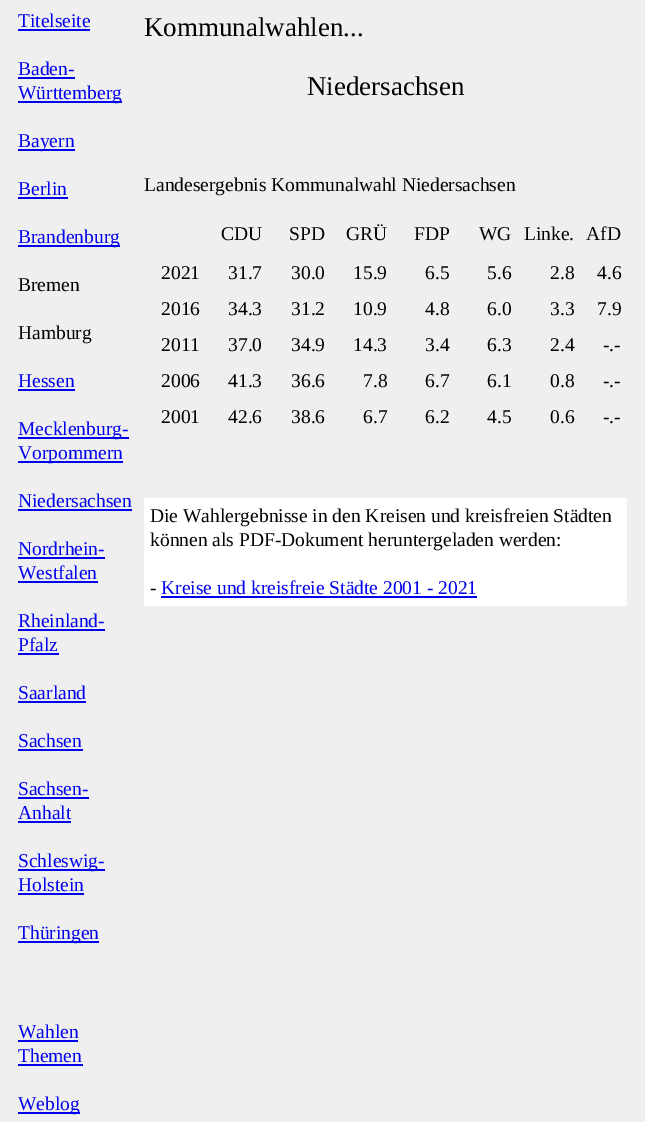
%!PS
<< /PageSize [645 1122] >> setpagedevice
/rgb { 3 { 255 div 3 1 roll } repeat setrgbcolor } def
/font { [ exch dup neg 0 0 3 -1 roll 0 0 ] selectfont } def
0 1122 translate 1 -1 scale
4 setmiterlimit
239 239 239 rgb
0 0 645 1122 rectfill
[
  [18 29 72 2 0 0 238]
  [18 77 57 2 0 0 238]
  [18 101 104 2 0 0 238]
  [18 149 57 2 0 0 238]
  [18 197 50 2 0 0 238]
  [18 245 102 2 0 0 238]
  [18 389 57 2 0 0 238]
  [18 437 111 2 0 0 238]
  [18 461 105 2 0 0 238]
  [18 509 114 2 0 0 238]
  [18 557 87 2 0 0 238]
  [18 581 80 2 0 0 238]
  [18 629 87 2 0 0 238]
  [18 653 41 2 0 0 238]
  [18 701 68 2 0 0 238]
  [18 749 65 2 0 0 238]
  [18 797 71 2 0 0 238]
  [18 821 53 2 0 0 238]
  [18 869 87 2 0 0 238]
  [18 893 66 2 0 0 238]
  [18 941 81 2 0 0 238]
  [18 1040 60 2 0 0 238]
  [18 1064 65 2 0 0 238]
  [18 1112 62 2 0 0 238]
  [144 498 483 108 255 255 255]
  [161 596 316 2 0 0 238]
] { aload pop rgb rectfill } forall
/LiberationSerif-Regular 19.5 font
[
  [(Titelseite) 18 27]
  [(Baden-) 18 75]
  [(Württemberg) 18 99]
  [(Bayern) 18 147]
  [(Berlin) 18 195]
  [(Brandenburg) 18 243]
] { aload pop moveto show } forall
0 0 0 rgb
18 291 moveto (Bremen) show
18 339 moveto (Hamburg) show
0 0 238 rgb
[
  [(Hessen) 18 387]
  [(Mecklenburg-) 18 435]
  [(Vorpommern) 18 459]
  [(Niedersachsen) 18 507]
  [(Nordrhein-) 18 555]
  [(Westfalen) 18 579]
  [(Rheinland-) 18 627]
  [(Pfalz) 18 651]
  [(Saarland) 18 699]
  [(Sachsen) 18 747]
  [(Sachsen-) 18 795]
  [(Anhalt) 18 819]
  [(Schleswig-) 18 867]
  [(Holstein) 18 891]
  [(Thüringen) 18 939]
  [(Wahlen) 18 1038]
  [(Themen) 18 1062]
  [(Weblog) 18 1110]
] { aload pop moveto show } forall
/LiberationSerif-Regular 27 font
0 0 0 rgb
144 36 moveto (Kommunalwahlen...) show
307 95 moveto (Niedersachsen) show
/LiberationSerif-Regular 19.5 font
[
  [(Landesergebnis Kommunalwahl Niedersachsen) 144 191]
  [(CDU) 221 240]
  [(SPD) 289 240]
  [(GRÜ) 346 240]
  [(FDP) 414 240]
  [(WG) 479 240]
  [(Linke.) 524 240]
  [(AfD) 586 240]
  [(2021) 161 279]
  [(31.7) 228 279]
  [(30.0) 291 279]
  [(15.9) 353 279]
  [(6.5) 425 279]
  [(5.6) 487 279]
  [(2.8) 550 279]
  [(4.6) 597 279]
  [(2016) 161 315]
  [(34.3) 228 315]
  [(31.2) 291 315]
  [(10.9) 353 315]
  [(4.8) 425 315]
  [(6.0) 487 315]
  [(3.3) 550 315]
  [(7.9) 597 315]
  [(2011) 161 351]
  [(37.0) 228 351]
  [(34.9) 291 351]
  [(14.3) 353 351]
  [(3.4) 425 351]
  [(6.3) 487 351]
  [(2.4) 550 351]
  [(-.-) 603 351]
  [(2006) 161 387]
  [(41.3) 228 387]
  [(36.6) 291 387]
  [(7.8) 363 387]
  [(6.7) 425 387]
  [(6.1) 487 387]
  [(0.8) 550 387]
  [(-.-) 603 387]
  [(2001) 161 423]
  [(42.6) 228 423]
  [(38.6) 291 423]
  [(6.7) 363 423]
  [(6.2) 425 423]
  [(4.5) 487 423]
  [(0.6) 550 423]
  [(-.-) 603 423]
  [(Die Wahlergebnisse in den Kreisen und kreisfreien Städten) 150 522]
  [(können als PDF-Dokument heruntergeladen werden:) 150 546]
  [(-) 150 594]
] { aload pop moveto show } forall
0 0 238 rgb
161 594 moveto (Kreise und kreisfreie Städte 2001 - 2021) show
showpage
